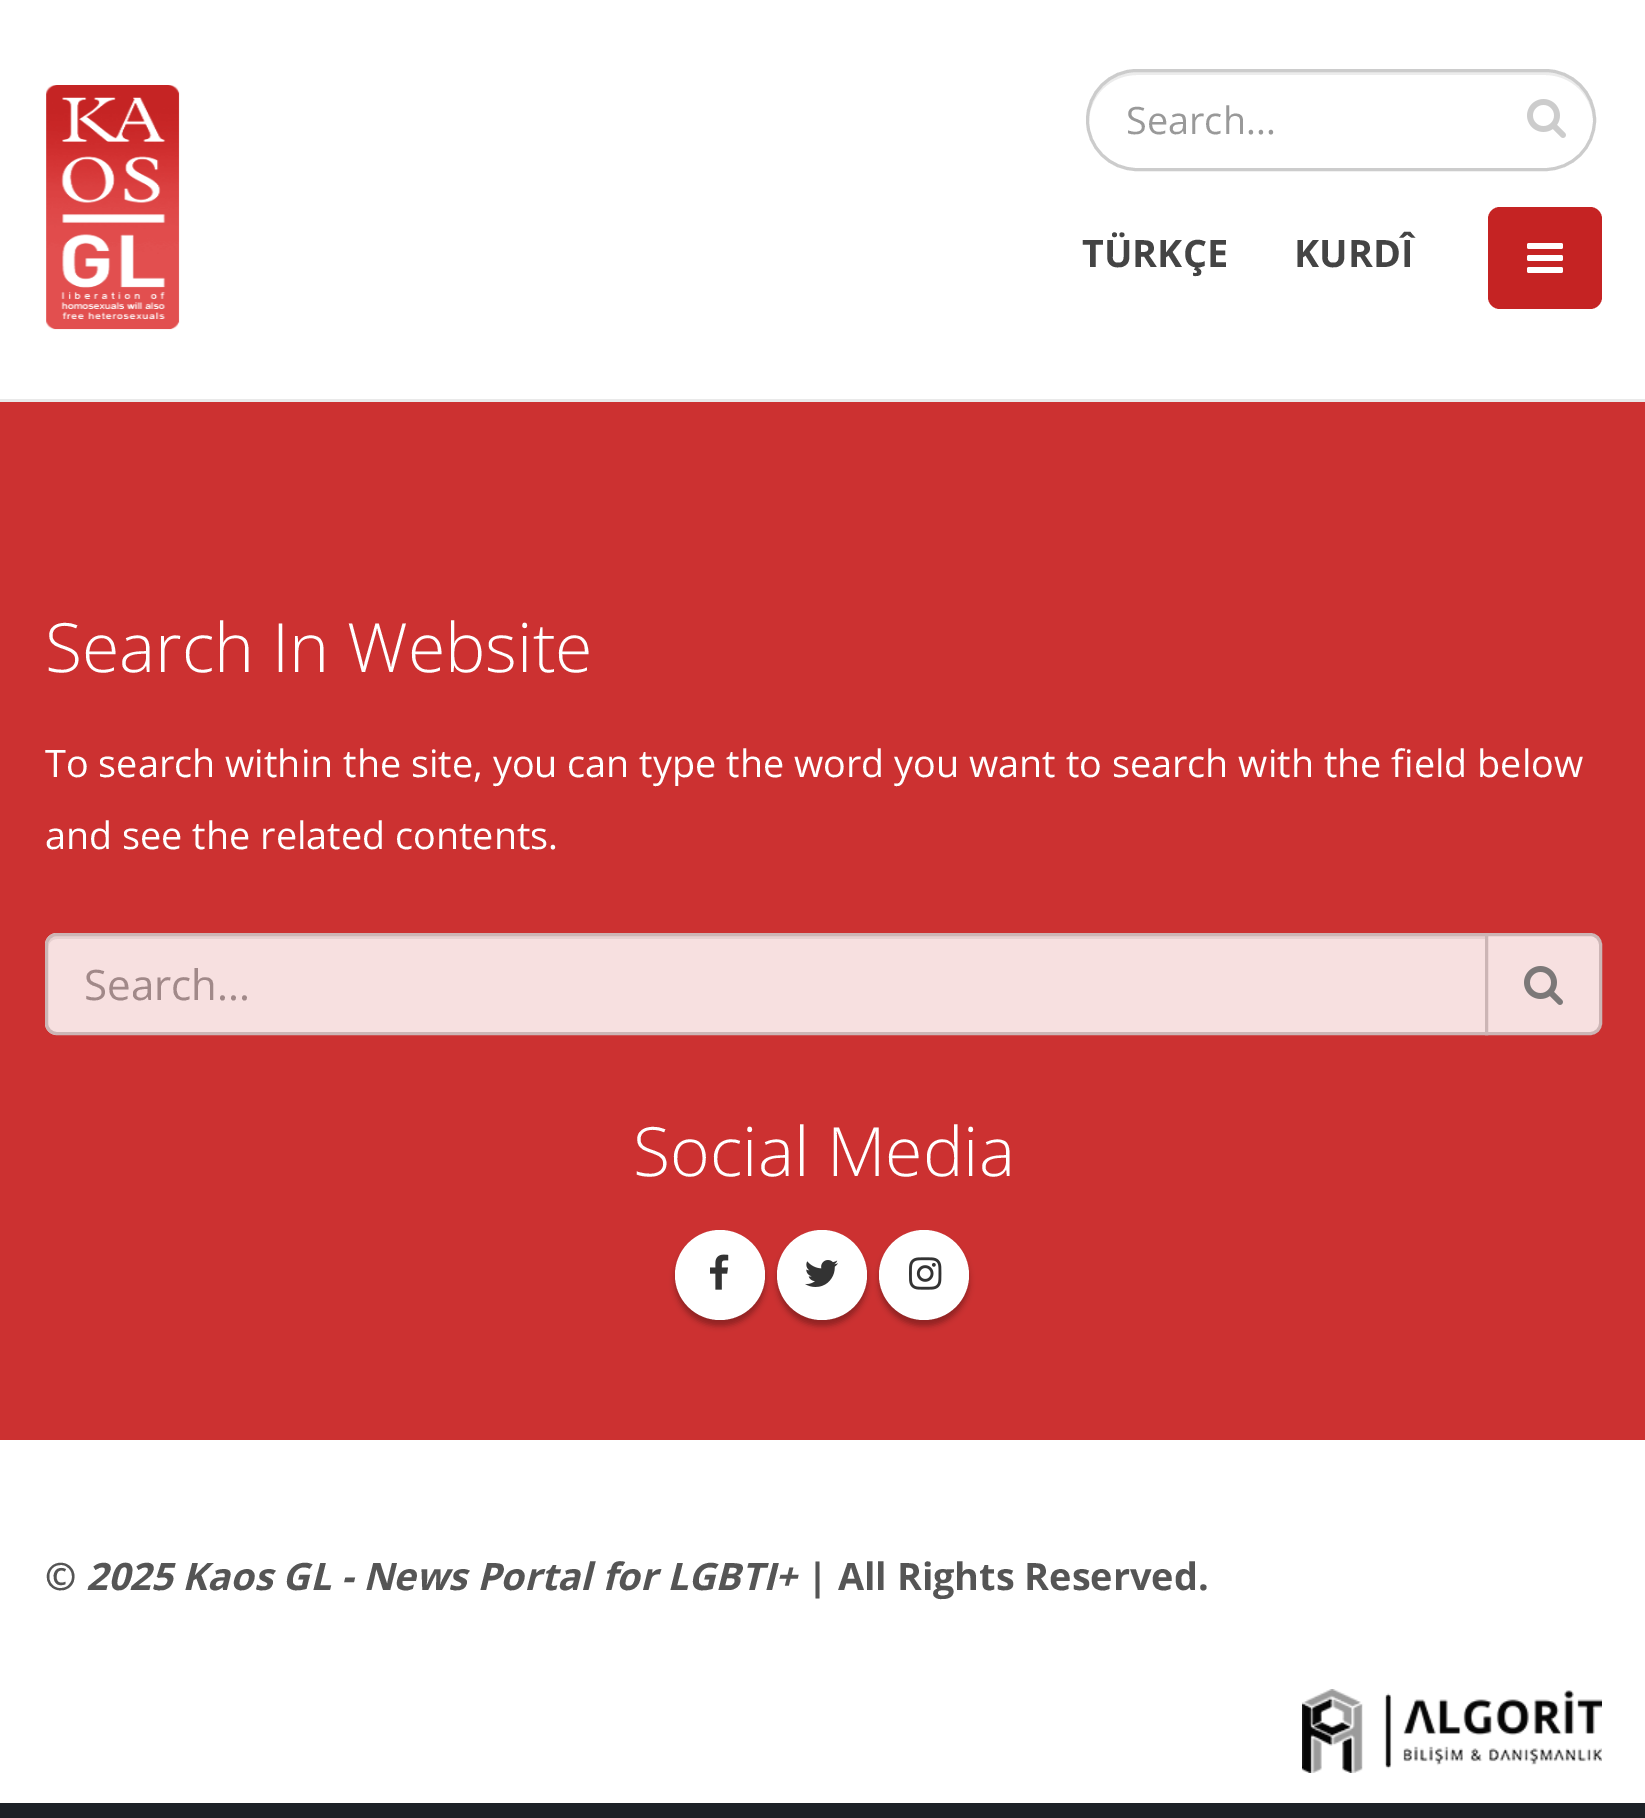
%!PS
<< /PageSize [1645 1818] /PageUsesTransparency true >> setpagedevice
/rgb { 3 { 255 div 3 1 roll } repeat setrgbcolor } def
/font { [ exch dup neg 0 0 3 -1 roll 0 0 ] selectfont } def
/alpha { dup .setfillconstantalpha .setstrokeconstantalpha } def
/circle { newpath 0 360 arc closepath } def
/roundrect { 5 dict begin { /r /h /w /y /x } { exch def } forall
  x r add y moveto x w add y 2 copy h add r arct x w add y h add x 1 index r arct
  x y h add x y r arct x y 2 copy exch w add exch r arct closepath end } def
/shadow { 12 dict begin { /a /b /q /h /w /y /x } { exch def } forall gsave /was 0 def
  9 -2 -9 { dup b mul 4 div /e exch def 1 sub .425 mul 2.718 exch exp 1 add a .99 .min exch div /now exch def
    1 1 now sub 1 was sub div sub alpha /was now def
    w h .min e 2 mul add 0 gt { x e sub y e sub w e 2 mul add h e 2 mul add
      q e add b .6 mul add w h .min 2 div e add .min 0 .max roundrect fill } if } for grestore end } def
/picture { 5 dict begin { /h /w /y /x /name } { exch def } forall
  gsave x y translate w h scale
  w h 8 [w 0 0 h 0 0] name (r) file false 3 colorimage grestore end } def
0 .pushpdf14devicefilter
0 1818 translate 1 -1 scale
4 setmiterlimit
29 33 39 rgb
0 0 1645 1818 rectfill
255 255 255 rgb
0 0 1645 399 rectfill
233 233 233 rgb
0 399 1645 3 rectfill
(img/1.rgb) 46 85 134 245 picture
236 236 236 rgb
1137 75 moveto 1545 75 lineto 1571 75 1592 95 1593 121 curveto 1593 120 lineto 1593 93 1572 72 1545 72 curveto 1137 72 lineto 1110 72 1089 93 1089 120 curveto 1089 121 lineto 1090 95 1111 75 1137 75 curveto closepath fill
204 204 204 rgb
3 setlinewidth
1087.5 70.5 507 99 49.5 roundrect stroke
(img/2.rgb) 1527 99 39 39 picture
197 35 35 rgb
1488 207 114 102 12 roundrect fill
(img/3.rgb) 1527 243 36 30 picture
204 49 49 rgb
0 402 1645 1038 rectfill
247 224 224 rgb
57 933 moveto 1488 933 lineto 1488 1035 lineto 57 1035 lineto 50.5 1035 45 1029.5 45 1023 curveto 45 945 lineto 45 938.5 50.5 933 57 933 curveto closepath fill
231 208 208 rgb
57 939 moveto 1485 939 lineto 1485 936 lineto 57 936 lineto 50 936 48 942 48 948 curveto 48 943 52 939 57 939 curveto closepath fill
204 181 181 rgb
57 934.5 moveto 1486.5 934.5 lineto 1486.5 1033.5 lineto 57 1033.5 lineto 51 1033.5 46.5 1029 46.5 1023 curveto 46.5 945 lineto 46.5 939 51 934.5 57 934.5 curveto closepath stroke
247 224 224 rgb
1486.5 934.5 moveto 1590 934.5 lineto 1596 934.5 1600.5 939 1600.5 945 curveto 1600.5 1023 lineto 1600.5 1029 1596 1033.5 1590 1033.5 curveto 1486.5 1033.5 lineto closepath gsave fill grestore
204 181 181 rgb
stroke
(img/4.rgb) 1524 966 39 39 picture
0 0 0 rgb
675 1236 90 90 45 3 0.3 shadow
255 255 255 rgb
720 1275 45 circle fill
(img/5.rgb) 710 1254 19 36 picture
0 0 0 rgb
777 1236 90 90 45 3 0.3 shadow
255 255 255 rgb
822 1275 45 circle fill
(img/6.rgb) 805 1260 33 27 picture
0 0 0 rgb
879 1236 90 90 45 3 0.3 shadow
255 255 255 rgb
924 1275 45 circle fill
(img/7.rgb) 909 1257 33 33 picture
0 1440 1645 363 rectfill
(img/8.rgb) 1302 1689 300 84 picture
/OpenSans-Regular 37.8 font
153 153 153 rgb
1126 134 moveto (Search...) show
/OpenSans-Bold 37.8 font
68 68 68 rgb
1082 267 moveto (TÜRKÇE) show
1294 267 moveto (KURDÎ) show
/OpenSans-Light 68 font
255 255 255 rgb
45 672 moveto (Search In Website) show
/OpenSans-Regular 37.8 font
45 777 moveto (To search within the site, you can type the word you want to search with the field below) show
45 849 moveto (and see the related contents.) show
/OpenSans-Regular 42 font
161 137 137 rgb
84 1000 moveto (Search...) show
/OpenSans-Light 68 font
255 255 255 rgb
633 1176 moveto (Social Media) show
/OpenSans-Bold 37.8 font
85 85 85 rgb
45 1590 moveto (©) show
/OpenSans-BoldItalic 37.8 font
86 1590 moveto (2025 Kaos GL - News Portal for LGBTI+) show
/OpenSans-Bold 37.8 font
807 1590 moveto (| All Rights Reserved.) show
.poppdf14devicefilter showpage
